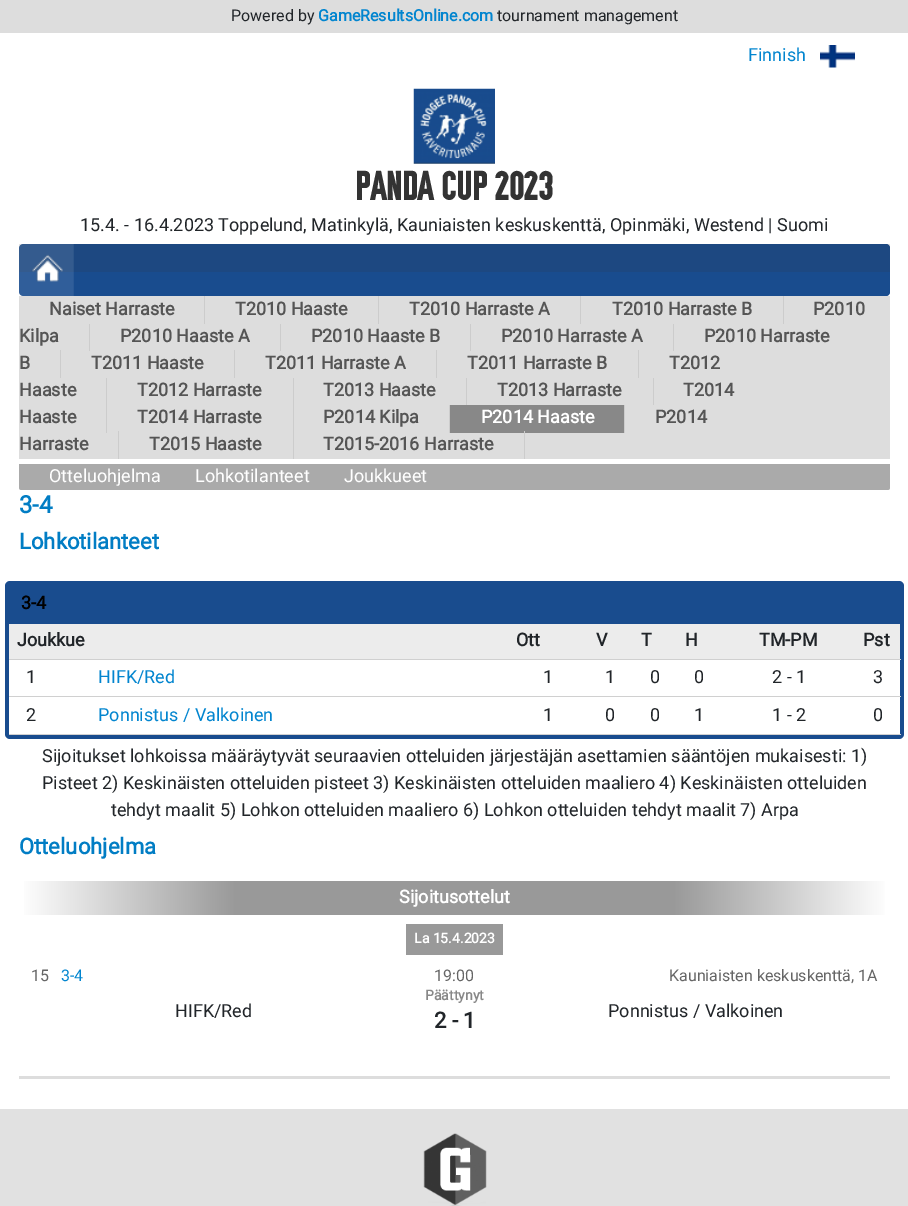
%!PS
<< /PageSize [908 1206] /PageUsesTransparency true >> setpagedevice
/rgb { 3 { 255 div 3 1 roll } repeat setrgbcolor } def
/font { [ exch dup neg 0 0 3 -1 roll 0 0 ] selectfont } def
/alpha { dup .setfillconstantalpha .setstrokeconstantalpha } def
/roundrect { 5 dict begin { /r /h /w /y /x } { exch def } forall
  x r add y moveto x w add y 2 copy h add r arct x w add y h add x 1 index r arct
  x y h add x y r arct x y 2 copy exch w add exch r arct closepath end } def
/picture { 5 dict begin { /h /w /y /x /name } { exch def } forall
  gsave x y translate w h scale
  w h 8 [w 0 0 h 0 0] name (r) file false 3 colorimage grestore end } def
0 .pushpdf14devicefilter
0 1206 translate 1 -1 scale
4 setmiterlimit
225 225 225 rgb
0 0 908 1206 rectfill
255 255 255 rgb
0 33 908 1076 rectfill
221 221 221 rgb
0 0 908 33 rectfill
(img/1.rgb) 820 45 35 23 picture
(img/2.rgb) 413 88 82 76 picture
25 76 142 rgb
19 244 871 52 4 roundrect fill
0.14 alpha
50 50 50 rgb
19 244 871 28 rectfill
1 alpha
(img/3.rgb) 19 244 55 52 picture
[
  [19 296 871 163 221 221 221]
  [204 296 1 28 204 204 204]
  [378 296 1 28 204 204 204]
  [580 296 1 28 204 204 204]
  [783 296 1 28 204 204 204]
  [89 324 1 27 204 204 204]
  [280 324 1 27 204 204 204]
  [470 324 1 27 204 204 204]
  [673 324 1 27 204 204 204]
  [60 350 1 28 204 204 204]
  [234 350 1 28 204 204 204]
  [436 350 1 28 204 204 204]
  [638 350 1 28 204 204 204]
  [106 378 1 55 204 204 204]
  [293 378 1 81 204 204 204]
  [466 378 1 27 204 204 204]
  [653 378 1 27 204 204 204]
  [449 405 1 28 204 204 204]
  [450 405 174 28 136 136 136]
  [624 405 1 28 204 204 204]
  [118 431 1 28 204 204 204]
  [524 431 1 28 204 204 204]
] { aload pop rgb rectfill } forall
170 170 170 rgb
19 464 moveto 890 464 lineto 890 487.5 lineto 890 489 889 490 887.5 490 curveto 21.5 490 lineto 20 490 19 489 19 487.5 curveto closepath fill
25 76 142 rgb
5 581 899 158 5 roundrect fill
[
  [9 660 891 74 255 255 255]
  [9 624 891 35 236 236 236]
  [9 659 892 1 208 208 208]
  [9 696 892 1 208 208 208]
  [9 734 892 1 208 208 208]
] { aload pop rgb rectfill } forall
gsave 24 881 moveto 885 881 lineto 885 915 lineto 24 915 lineto closepath clip newpath
<< /ShadingType 2 /ColorSpace /DeviceRGB /Coords [19 898 890 898] /Extend [true true] /Function << /FunctionType 3 /Domain [0 1] /Functions [<< /FunctionType 2 /Domain [0 1] /C0 [1 1 1] /C1 [0.6 0.6 0.6] /N 1 >> << /FunctionType 2 /Domain [0 1] /C0 [0.6 0.6 0.6] /C1 [0.6 0.6 0.6] /N 1 >> << /FunctionType 2 /Domain [0 1] /C0 [0.6 0.6 0.6] /C1 [1 1 1] /N 1 >>] /Bounds [0.25 0.75] /Encode [0 1 0 1 0 1] >> >> shfill grestore
153 153 153 rgb
406 924 97 31 rectfill
221 221 221 rgb
19 1076 871 3 rectfill
(img/4.rgb) 423 1133 64 73 picture
/Roboto-Regular 16 font
33 37 41 rgb
231 21 moveto (Powered by) show
/Roboto-Bold 16 font
2 133 207 rgb
318 21 moveto (GameResultsOnline.com) show
/Roboto-Regular 16 font
33 37 41 rgb
497 21 moveto (tournament management) show
/Roboto-Regular 18 font
2 133 207 rgb
748 61 moveto (Finnish) show
/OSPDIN-Bold 40 font
51 51 51 rgb
355 200 moveto (PANDA CUP 2023) show
/Roboto-Regular 18 font
33 37 41 rgb
80 231 moveto (15.4. - 16.4.2023 Toppelund, Matinkylä, Kauniaisten keskuskenttä, Opinmäki, Westend | Suomi) show
/Roboto-Bold 18 font
85 85 85 rgb
[
  [(Naiset Harraste) 49 315]
  [(T2010 Haaste) 235 315]
  [(T2010 Harraste A) 409 315]
  [(T2010 Harraste B) 612 315]
  [(P2010) 813 315]
  [(Kilpa) 19 342]
  [(P2010 Haaste A) 120 342]
  [(P2010 Haaste B) 311 342]
  [(P2010 Harraste A) 501 342]
  [(P2010 Harraste) 704 342]
  [(B) 19 369]
  [(T2011 Haaste) 91 369]
  [(T2011 Harraste A) 265 369]
  [(T2011 Harraste B) 467 369]
  [(T2012) 669 369]
  [(Haaste) 19 396]
  [(T2012 Harraste) 137 396]
  [(T2013 Haaste) 323 396]
  [(T2013 Harraste) 497 396]
  [(T2014) 683 396]
  [(Haaste) 19 423]
  [(T2014 Harraste) 137 423]
  [(P2014 Kilpa) 323 423]
] { aload pop moveto show } forall
255 255 255 rgb
481 423 moveto (P2014 Haaste) show
85 85 85 rgb
[
  [(P2014) 655 423]
  [(Harraste) 19 450]
  [(T2015 Haaste) 149 450]
  [(T2015-2016 Harraste) 323 450]
] { aload pop moveto show } forall
/Roboto-Regular 18 font
255 255 255 rgb
[
  [(Otteluohjelma) 49 482]
  [(Lohkotilanteet) 195 482]
  [(Joukkueet) 344 482]
] { aload pop moveto show } forall
/Roboto-Bold 24 font
1 125 196 rgb
19 513 moveto (3-4) show
/Roboto-Bold 22 font
19 549 moveto (Lohkotilanteet) show
/Roboto-Bold 18 font
0 0 0 rgb
21 609 moveto (3-4) show
33 37 41 rgb
[
  [(Joukkue) 17 646]
  [(Ott) 516 646]
  [(V) 596 646]
  [(T) 641 646]
  [(H) 685 646]
  [(TM-PM) 759 646]
  [(Pst) 863 646]
] { aload pop moveto show } forall
/Roboto-Regular 18 font
26 683 moveto (1) show
2 133 207 rgb
98 683 moveto (HIFK/Red) show
33 37 41 rgb
[
  [(1) 543 683]
  [(1) 605 683]
  [(0) 650 683]
  [(0) 694 683]
  [(2 - 1) 772 683]
  [(3) 873 683]
  [(2) 26 721]
] { aload pop moveto show } forall
2 133 207 rgb
98 721 moveto (Ponnistus / Valkoinen) show
33 37 41 rgb
[
  [(1) 543 721]
  [(0) 605 721]
  [(0) 650 721]
  [(1) 694 721]
  [(1 - 2) 772 721]
  [(0) 873 721]
  [(Sijoitukset lohkoissa määräytyvät seuraavien otteluiden järjestäjän asettamien sääntöjen mukaisesti: 1\)) 42 762]
  [(Pisteet 2\) Keskinäisten otteluiden pisteet 3\) Keskinäisten otteluiden maaliero 4\) Keskinäisten otteluiden) 42 789]
  [(tehdyt maalit 5\) Lohkon otteluiden maaliero 6\) Lohkon otteluiden tehdyt maalit 7\) Arpa) 111 816]
] { aload pop moveto show } forall
/Roboto-Bold 22 font
1 125 196 rgb
19 854 moveto (Otteluohjelma) show
/Roboto-Bold 18 font
255 255 255 rgb
399 903 moveto (Sijoitusottelut) show
/Roboto-Bold 14 font
414 943 moveto (La 15.4.2023) show
/Roboto-Regular 16 font
102 102 102 rgb
31 981 moveto (15) show
2 133 207 rgb
61 981 moveto (3-4) show
102 102 102 rgb
434 981 moveto (19:00) show
669 981 moveto (Kauniaisten keskuskenttä, 1A) show
/Roboto-Regular 18 font
33 37 41 rgb
175 1017 moveto (HIFK/Red) show
/Roboto-Bold 14 font
136 136 136 rgb
425 1000 moveto (Päättynyt) show
/Roboto-Bold 22 font
33 37 41 rgb
434 1028 moveto (2 - 1) show
/Roboto-Regular 18 font
608 1017 moveto (Ponnistus / Valkoinen) show
.poppdf14devicefilter showpage
